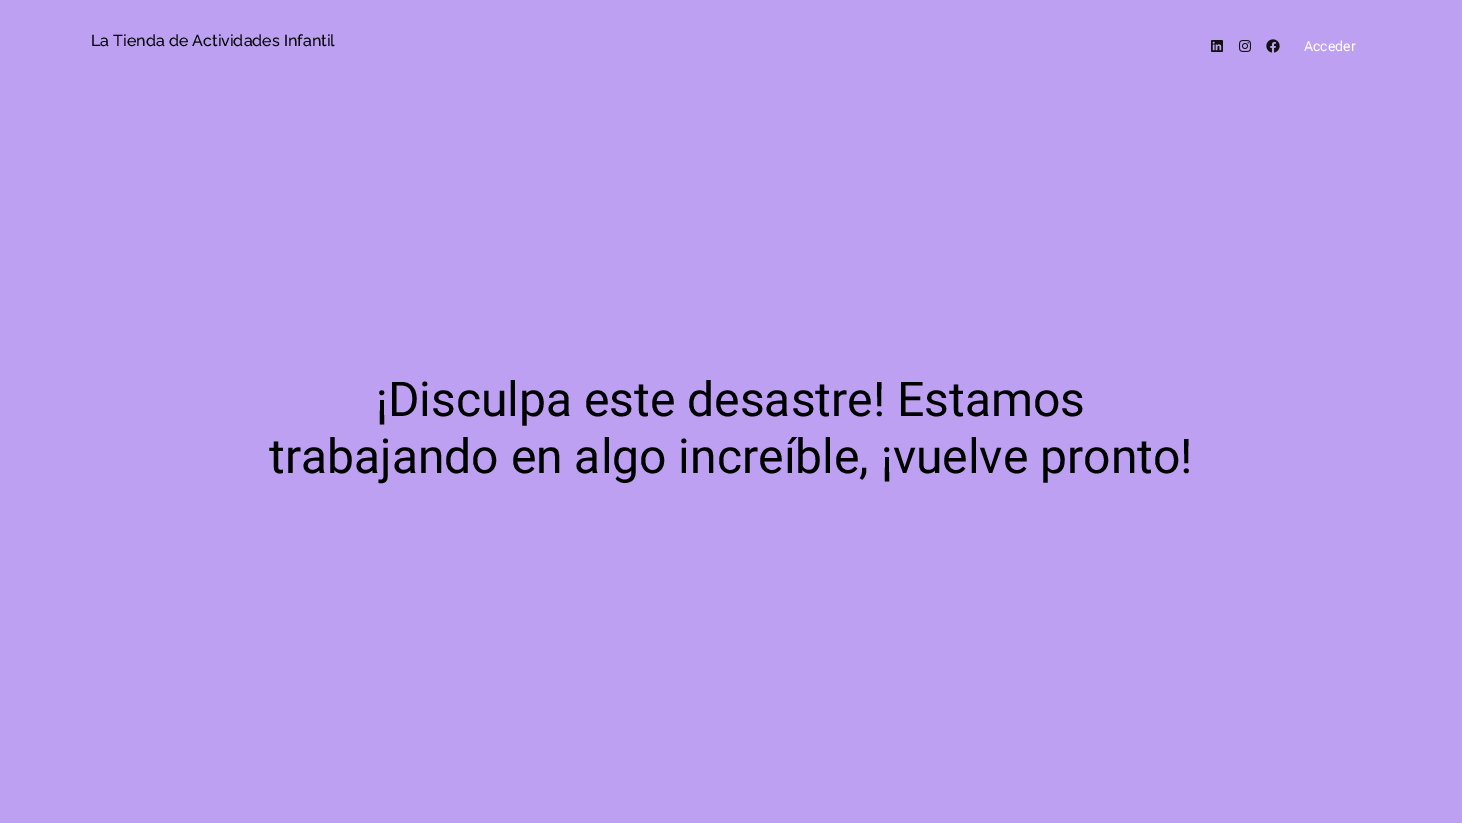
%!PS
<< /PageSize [1462 823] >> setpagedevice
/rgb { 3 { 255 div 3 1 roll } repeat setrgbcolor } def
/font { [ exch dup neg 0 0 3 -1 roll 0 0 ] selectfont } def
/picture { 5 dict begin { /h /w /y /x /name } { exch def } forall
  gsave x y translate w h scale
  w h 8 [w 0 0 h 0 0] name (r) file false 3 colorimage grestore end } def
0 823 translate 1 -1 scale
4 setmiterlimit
190 160 242 rgb
0 0 1462 823 rectfill
(img/1.rgb) 1211 40 12 12 picture
(img/2.rgb) 1239 40 12 12 picture
(img/3.rgb) 1266 39 14 14 picture
/Raleway-Medium 16 font
0 0 0 rgb
91 46 moveto (La Tienda de Actividades Infantil) show
/Roboto-Regular 14 font
255 255 255 rgb
1304 51 moveto (Acceder) show
/Roboto-Regular 48 font
0 0 0 rgb
376 416 moveto (¡Disculpa este desastre! Estamos) show
269 473 moveto (trabajando en algo increíble, ¡vuelve pronto!) show
showpage
